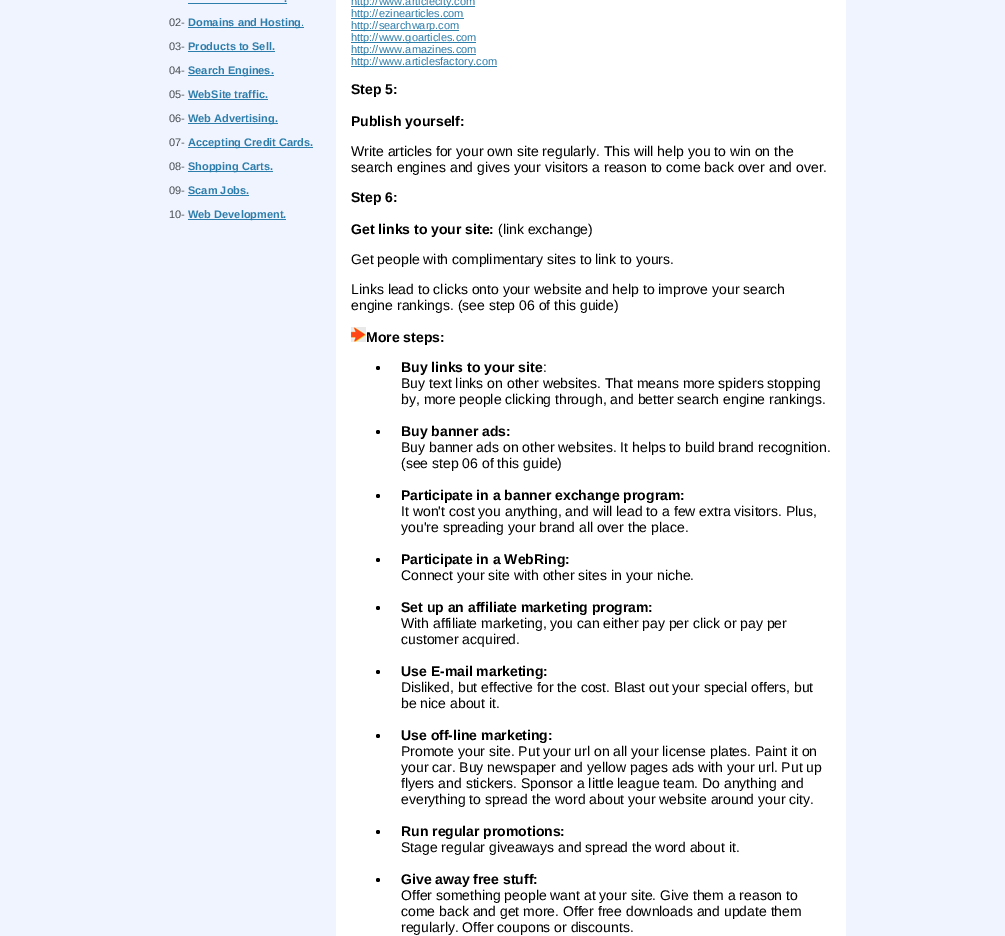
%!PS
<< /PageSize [1005 936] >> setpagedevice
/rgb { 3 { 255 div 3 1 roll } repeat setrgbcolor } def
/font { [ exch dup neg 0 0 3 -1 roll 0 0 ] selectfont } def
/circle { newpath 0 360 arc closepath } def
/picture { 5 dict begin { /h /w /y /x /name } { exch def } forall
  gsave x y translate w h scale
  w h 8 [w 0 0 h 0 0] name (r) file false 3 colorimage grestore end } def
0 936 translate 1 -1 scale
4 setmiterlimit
240 244 255 rgb
0 0 1005 936 rectfill
[
  [188 3 99 1 46 126 171]
  [188 27 116 1 46 126 171]
  [188 51 87 1 46 126 171]
  [188 75 86 1 46 126 171]
  [188 99 80 1 46 126 171]
  [188 123 90 1 46 126 171]
  [188 147 125 1 46 126 171]
  [188 171 85 1 46 126 171]
  [188 195 61 1 46 126 171]
  [188 219 98 1 46 126 171]
  [336 0 510 936 255 255 255]
  [351 6 124 1 46 126 171]
  [351 18 113 1 46 126 171]
  [351 30 108 1 46 126 171]
  [351 42 125 1 46 126 171]
  [351 54 125 1 46 126 171]
  [351 66 146 1 46 126 171]
] { aload pop rgb rectfill } forall
(img/1.rgb) 351 327 15 15 picture
0 0 0 rgb
378 368 2 circle fill
378 432 2 circle fill
378 496 2 circle fill
378 560 2 circle fill
378 608 2 circle fill
378 672 2 circle fill
378 736 2 circle fill
378 832 2 circle fill
378 880 2 circle fill
/LiberationSans-Bold 11 font
46 126 171 rgb
284 2 moveto (.) show
/LiberationSans-Regular 11 font
74 80 84 rgb
169 26 moveto (02-) show
/LiberationSans-Bold 11 font
46 126 171 rgb
188 26 moveto (Domains and Hosting) show
/LiberationSans-Regular 11 font
301 26 moveto (.) show
74 80 84 rgb
169 50 moveto (03-) show
/LiberationSans-Bold 11 font
46 126 171 rgb
188 50 moveto (Products to Sell.) show
/LiberationSans-Regular 11 font
74 80 84 rgb
169 74 moveto (04-) show
/LiberationSans-Bold 11 font
46 126 171 rgb
188 74 moveto (Search Engines.) show
/LiberationSans-Regular 11 font
74 80 84 rgb
169 98 moveto (05-) show
/LiberationSans-Bold 11 font
46 126 171 rgb
188 98 moveto (WebSite traffic.) show
/LiberationSans-Regular 11 font
74 80 84 rgb
169 122 moveto (06-) show
/LiberationSans-Bold 11 font
46 126 171 rgb
188 122 moveto (Web Advertising.) show
/LiberationSans-Regular 11 font
74 80 84 rgb
169 146 moveto (07-) show
/LiberationSans-Bold 11 font
46 126 171 rgb
188 146 moveto (Accepting Credit Cards.) show
/LiberationSans-Regular 11 font
74 80 84 rgb
169 170 moveto (08-) show
/LiberationSans-Bold 11 font
46 126 171 rgb
188 170 moveto (Shopping Carts.) show
/LiberationSans-Regular 11 font
74 80 84 rgb
169 194 moveto (09-) show
/LiberationSans-Bold 11 font
46 126 171 rgb
188 194 moveto (Scam Jobs.) show
/LiberationSans-Regular 11 font
74 80 84 rgb
169 218 moveto (10-) show
/LiberationSans-Bold 11 font
46 126 171 rgb
188 218 moveto (Web Development.) show
/LiberationSans-Regular 11 font
[
  [(http://www.articlecity.com) 351 5]
  [(http://ezinearticles.com) 351 17]
  [(http://searchwarp.com) 351 29]
  [(http://www.goarticles.com) 351 41]
  [(http://www.amazines.com) 351 53]
  [(http://www.articlesfactory.com) 351 65]
] { aload pop moveto show } forall
/LiberationSans-Bold 14 font
0 0 0 rgb
351 94 moveto (Step 5:) show
351 126 moveto (Publish yourself:) show
/LiberationSans-Regular 14 font
351 156 moveto (Write articles for your own site regularly. This will help you to win on the) show
351 172 moveto (search engines and gives your visitors a reason to come back over and over.) show
/LiberationSans-Bold 14 font
351 202 moveto (Step 6:) show
351 234 moveto (Get links to your site:) show
/LiberationSans-Regular 14 font
[
  [(\(link exchange\)) 498 234]
  [(Get people with complimentary sites to link to yours.) 351 264]
  [(Links lead to clicks onto your website and help to improve your search) 351 294]
  [(engine rankings. \(see step 06 of this guide\)) 351 310]
] { aload pop moveto show } forall
/LiberationSans-Bold 14 font
366 342 moveto (More steps:) show
401 372 moveto (Buy links to your site) show
/LiberationSans-Regular 14 font
[
  [(:) 543 372]
  [(Buy text links on other websites. That means more spiders stopping) 401 388]
  [(by, more people clicking through, and better search engine rankings.) 401 404]
] { aload pop moveto show } forall
/LiberationSans-Bold 14 font
401 436 moveto (Buy banner ads:) show
/LiberationSans-Regular 14 font
401 452 moveto (Buy banner ads on other websites. It helps to build brand recognition.) show
401 468 moveto (\(see step 06 of this guide\)) show
/LiberationSans-Bold 14 font
401 500 moveto (Participate in a banner exchange program:) show
/LiberationSans-Regular 14 font
401 516 moveto (It won't cost you anything, and will lead to a few extra visitors. Plus,) show
401 532 moveto (you're spreading your brand all over the place.) show
/LiberationSans-Bold 14 font
401 564 moveto (Participate in a WebRing:) show
/LiberationSans-Regular 14 font
401 580 moveto (Connect your site with other sites in your niche.) show
/LiberationSans-Bold 14 font
401 612 moveto (Set up an affiliate marketing program:) show
/LiberationSans-Regular 14 font
401 628 moveto (With affiliate marketing, you can either pay per click or pay per) show
401 644 moveto (customer acquired.) show
/LiberationSans-Bold 14 font
401 676 moveto (Use E-mail marketing:) show
/LiberationSans-Regular 14 font
401 692 moveto (Disliked, but effective for the cost. Blast out your special offers, but) show
401 708 moveto (be nice about it.) show
/LiberationSans-Bold 14 font
401 740 moveto (Use off-line marketing:) show
/LiberationSans-Regular 14 font
[
  [(Promote your site. Put your url on all your license plates. Paint it on) 401 756]
  [(your car. Buy newspaper and yellow pages ads with your url. Put up) 401 772]
  [(flyers and stickers. Sponsor a little league team. Do anything and) 401 788]
  [(everything to spread the word about your website around your city.) 401 804]
] { aload pop moveto show } forall
/LiberationSans-Bold 14 font
401 836 moveto (Run regular promotions:) show
/LiberationSans-Regular 14 font
401 852 moveto (Stage regular giveaways and spread the word about it.) show
/LiberationSans-Bold 14 font
401 884 moveto (Give away free stuff:) show
/LiberationSans-Regular 14 font
[
  [(Offer something people want at your site. Give them a reason to) 401 900]
  [(come back and get more. Offer free downloads and update them) 401 916]
  [(regularly. Offer coupons or discounts.) 401 932]
] { aload pop moveto show } forall
showpage
